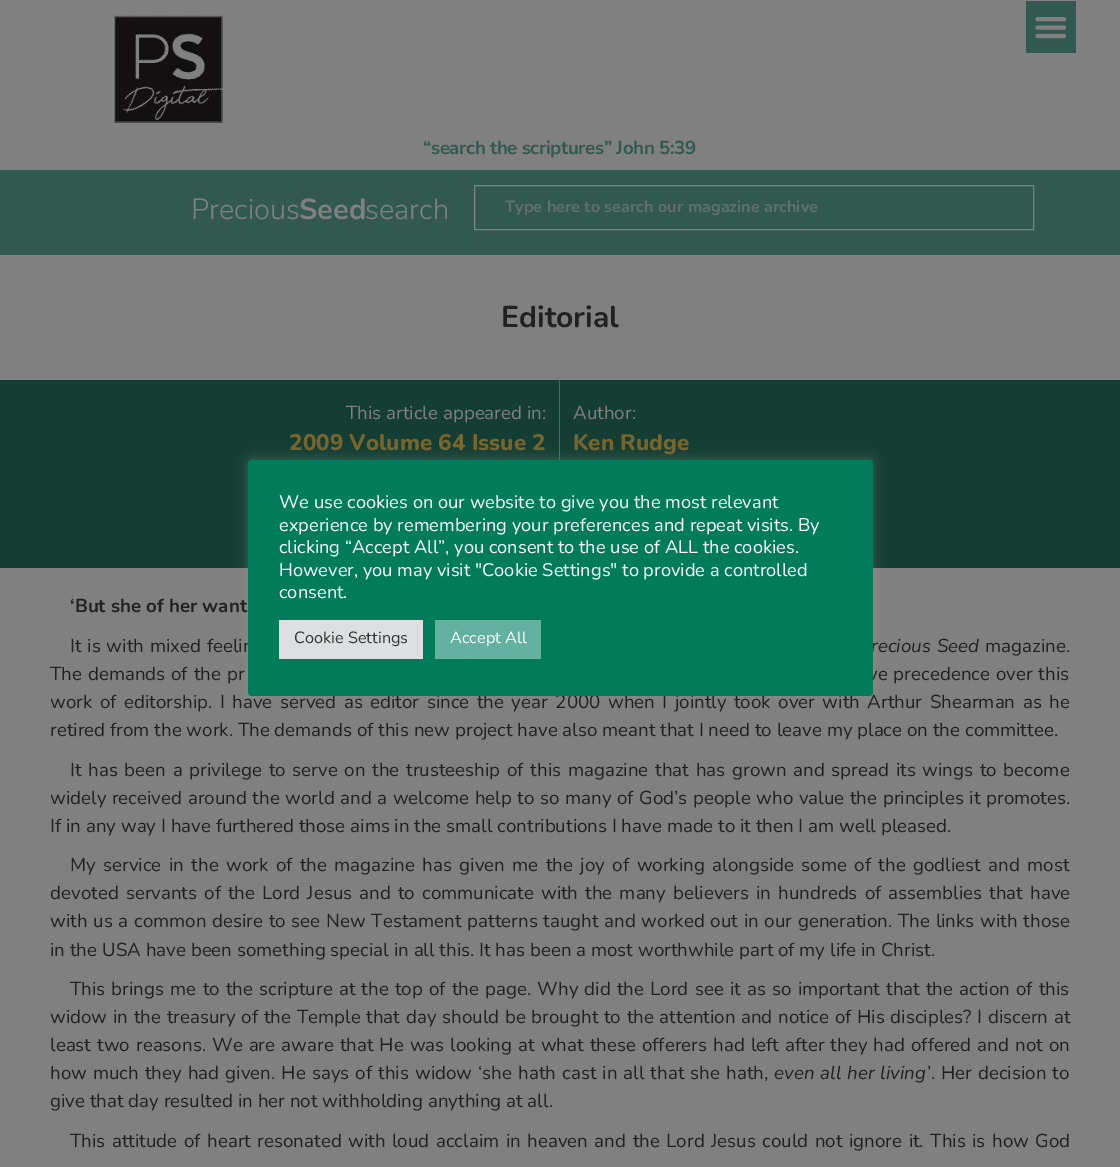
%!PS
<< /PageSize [1120 1167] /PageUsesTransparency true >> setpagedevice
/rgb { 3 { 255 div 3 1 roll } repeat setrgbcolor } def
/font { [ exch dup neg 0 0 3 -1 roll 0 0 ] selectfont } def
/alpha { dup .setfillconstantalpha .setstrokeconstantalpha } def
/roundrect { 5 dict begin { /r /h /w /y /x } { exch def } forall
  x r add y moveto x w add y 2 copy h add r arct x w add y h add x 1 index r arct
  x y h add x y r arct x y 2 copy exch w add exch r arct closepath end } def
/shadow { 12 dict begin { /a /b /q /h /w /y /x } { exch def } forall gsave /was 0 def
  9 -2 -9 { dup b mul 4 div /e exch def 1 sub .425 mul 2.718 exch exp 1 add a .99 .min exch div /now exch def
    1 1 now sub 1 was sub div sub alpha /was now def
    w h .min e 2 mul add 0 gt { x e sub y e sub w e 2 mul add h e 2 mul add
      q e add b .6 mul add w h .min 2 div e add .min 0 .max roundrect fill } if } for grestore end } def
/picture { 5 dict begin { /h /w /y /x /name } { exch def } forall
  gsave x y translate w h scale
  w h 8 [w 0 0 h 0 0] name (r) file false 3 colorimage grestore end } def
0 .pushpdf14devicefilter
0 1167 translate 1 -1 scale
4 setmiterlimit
128 128 128 rgb
0 0 1120 1167 rectfill
(img/1.rgb) 114 15 109 108 picture
50 89 80 rgb
1026 1 50 52 rectfill
(img/2.rgb) 1035 17 32 22 picture
0 170 1120 85 rectfill
128 128 128 rgb
474.5 185.5 559 44 rectstroke
[
  [0 380 559 188 20 62 52]
  [559 380 1 80 86 100 97]
  [560 380 560 188 20 62 52]
] { aload pop rgb rectfill } forall
172 171 171 rgb
248 459 625 236 4 6 0.3 shadow
/Nunito-Bold 18.75 font
50 89 80 rgb
423 154 moveto -0.4 0 (“search the scriptures” John 5:39) ashow
/Nunito-Light 29 font
128 128 128 rgb
191 219 moveto (Precious) show
/Nunito-Bold 29 font
299 219 moveto (Seed) show
/Nunito-Light 29 font
365 219 moveto (search) show
/Nunito-Bold 16.25 font
97 112 109 rgb
505 212 moveto (Type here to search our magazine archive) show
/Nunito-Bold 30 font
33 33 33 rgb
501 327 moveto (Editorial) show
/Nunito-Regular 18.75 font
128 128 128 rgb
346 419 moveto (This article appeared in:) show
/Nunito-ExtraBold 22.5 font
120 101 44 rgb
289 450 moveto (2009 Volume 64 Issue 2) show
/Nunito-Regular 18.75 font
128 128 128 rgb
573 419 moveto (Author:) show
/Nunito-ExtraBold 22.5 font
120 101 44 rgb
573 450 moveto (Ken Rudge) show
/Nunito-Bold 18.75 font
33 33 33 rgb
70 612 moveto (‘But she of her want) show
/Nunito-Regular 18.75 font
70 652 moveto 1 0 32 (It is with mixed feelin) widthshow
/Nunito-Italic 18.75 font
871 652 moveto 1 0 32 (recious Seed) widthshow
/Nunito-Regular 18.75 font
985 652 moveto (magazine.) show
50 680 moveto 1 0 32 (The demands of the pr) widthshow
868 680 moveto 1 0 32 (ve precedence over this) widthshow
50 708 moveto 2.7 0 32 (work of editorship. I have served as editor since the year 2000 when I jointly took over with Arthur Shearman as he) widthshow
50 736 moveto (retired from the work. The demands of this new project have also meant that I need to leave my place on the committee.) show
70 776 moveto 1.9 0 32 (It has been a privilege to serve on the trusteeship of this magazine that has grown and spread its wings to become) widthshow
50 804 moveto 0.75 0 32 (widely received around the world and a welcome help to so many of God’s people who value the principles it promotes.) widthshow
50 832 moveto (If in any way I have furthered those aims in the small contributions I have made to it then I am well pleased.) show
70 871 moveto 2.6 0 32 (My service in the work of the magazine has given me the joy of working alongside some of the godliest and most) widthshow
50 899 moveto 2.25 0 32 (devoted servants of the Lord Jesus and to communicate with the many believers in hundreds of assemblies that have) widthshow
50 927 moveto 0.9 0 32 (with us a common desire to see New Testament patterns taught and worked out in our generation. The links with those) widthshow
50 956 moveto (in the USA have been something special in all this. It has been a most worthwhile part of my life in Christ.) show
70 995 moveto 1.35 0 32 (This brings me to the scripture at the top of the page. Why did the Lord see it as so important that the action of this) widthshow
50 1023 moveto 0.9 0 32 (widow in the treasury of the Temple that day should be brought to the attention and notice of His disciples? I discern at) widthshow
50 1051 moveto 1.2 0 32 (least two reasons. We are aware that He was looking at what these offerers had left after they had offered and not on) widthshow
50 1079 moveto 1.25 0 32 (how much they had given. He says of this widow ‘she hath cast in all that she hath,) widthshow
/Nunito-Italic 18.75 font
774 1079 moveto 1 0 32 (even all her living’) widthshow
/Nunito-Regular 18.75 font
931 1079 moveto 1 0 32 (. Her decision to) widthshow
50 1107 moveto (give that day resulted in her not withholding anything at all.) show
70 1147 moveto 1.7 0 32 (This attitude of heart resonated with loud acclaim in heaven and the Lord Jesus could not ignore it. This is how God) widthshow
0 124 90 rgb
248 460 625 236 4 roundrect fill
/Nunito-Regular 18.3 font
255 255 255 rgb
[
  [(We use cookies on our website to give you the most relevant) 279 508]
  [(experience by remembering your preferences and repeat visits. By) 279 531]
  [(clicking “Accept All”, you consent to the use of ALL the cookies.) 279 553]
  [(However, you may visit "Cookie Settings" to provide a controlled) 279 576]
  [(consent.) 279 598]
] { aload pop moveto show } forall
222 223 224 rgb
279 620 144 39 rectfill
/Nunito-Regular 16.25 font
51 51 51 rgb
294 643 moveto (Cookie Settings) show
99 177 160 rgb
435 620 106 39 rectfill
255 255 255 rgb
450 643 moveto (Accept All) show
.poppdf14devicefilter showpage
